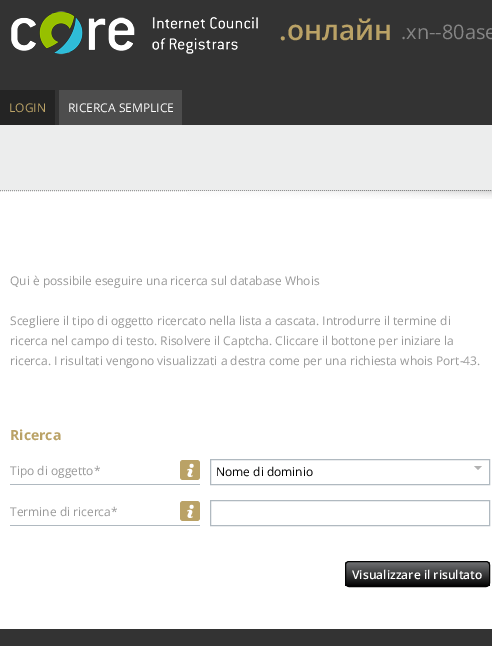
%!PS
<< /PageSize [492 646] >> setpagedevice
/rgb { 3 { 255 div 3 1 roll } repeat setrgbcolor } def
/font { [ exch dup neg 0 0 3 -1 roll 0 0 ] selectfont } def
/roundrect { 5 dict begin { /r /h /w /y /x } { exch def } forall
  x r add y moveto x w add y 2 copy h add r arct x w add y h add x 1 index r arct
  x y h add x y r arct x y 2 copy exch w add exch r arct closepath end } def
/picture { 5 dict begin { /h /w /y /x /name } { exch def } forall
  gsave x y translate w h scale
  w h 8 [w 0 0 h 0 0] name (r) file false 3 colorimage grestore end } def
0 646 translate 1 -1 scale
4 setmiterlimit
255 255 255 rgb
0 0 492 646 rectfill
51 51 51 rgb
0 0 492 90 rectfill
(img/1.rgb) 11 11 247 44 picture
[
  [55 90 437 35 51 51 51]
  [0 90 55 35 36 36 36]
  [59 90 123 35 77 77 77]
  [0 125 492 66 236 237 237]
] { aload pop rgb rectfill } forall
153 153 153 rgb
[1 1] 0 setdash
0 190.5 moveto 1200 190.5 lineto stroke
(img/2.rgb) 187 190 305 9 picture
176 185 192 rgb
10 484 190 1 rectfill
186 162 102 rgb
180 460 20 20 3 roundrect fill
(img/3.rgb) 187 463 7 14 picture
176 185 192 rgb
[] 0 setdash
210.5 459.5 279 25 rectstroke
(img/4.rgb) 474 466 8 4 picture
10 525 190 1 rectfill
186 162 102 rgb
180 501 20 20 3 roundrect fill
(img/3.rgb) 187 504 7 14 picture
176 185 192 rgb
210.5 500.5 279 25 rectstroke
gsave
345 561 145 26 4 roundrect clip newpath
gsave 345 562 moveto 490 562 lineto 490 586 lineto 345 586 lineto closepath clip newpath
<< /ShadingType 2 /ColorSpace /DeviceRGB /Coords [418 562 418 586] /Extend [true true] /Function << /FunctionType 2 /Domain [0 1] /C0 [0.439 0.443 0.451] /C1 [0.012 0.012 0.012] /N 1 >> >> shfill grestore
grestore
3 3 3 rgb
345.5 561.5 144 25 3.5 roundrect stroke
51 51 51 rgb
0 629 492 17 rectfill
/OpenSans-SemiBold 28 font
186 162 102 rgb
279 40 moveto (.онлайн) show
/OpenSans-Regular 20 font
133 133 133 rgb
401 39 moveto (.xn--80ase) show
/OpenSans-Regular 12 font
186 162 102 rgb
9 112 moveto (LOGIN) show
255 255 255 rgb
68 112 moveto (RICERCA SEMPLICE) show
153 153 153 rgb
[
  [(Qui è possibile eseguire una ricerca sul database Whois) 10 285]
  [(Scegliere il tipo di oggetto ricercato nella lista a cascata. Introdurre il termine di) 10 325]
  [(ricerca nel campo di testo. Risolvere il Captcha. Cliccare il bottone per iniziare la) 10 345]
  [(ricerca. I risultati vengono visualizzati a destra come per una richiesta whois Port-43.) 10 365]
] { aload pop moveto show } forall
/OpenSans-Bold 14 font
186 162 102 rgb
10 440 moveto (Ricerca) show
/OpenSans-Regular 12 font
153 153 153 rgb
10 475 moveto (Tipo di oggetto*) show
3 3 3 rgb
216 476 moveto (Nome di dominio) show
153 153 153 rgb
10 516 moveto (Termine di ricerca*) show
/OpenSans-SemiBold 12 font
255 255 255 rgb
352 579 moveto (Visualizzare il risultato) show
showpage
